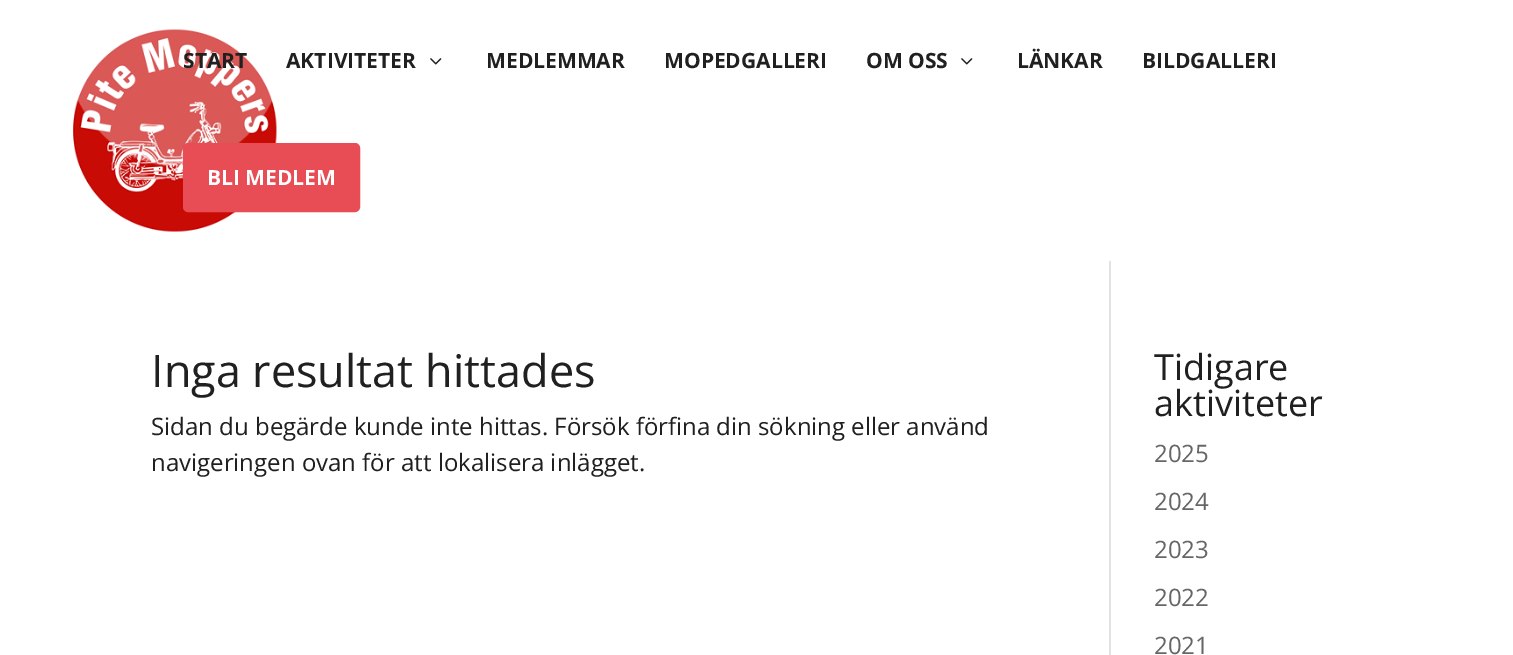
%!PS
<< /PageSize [1513 655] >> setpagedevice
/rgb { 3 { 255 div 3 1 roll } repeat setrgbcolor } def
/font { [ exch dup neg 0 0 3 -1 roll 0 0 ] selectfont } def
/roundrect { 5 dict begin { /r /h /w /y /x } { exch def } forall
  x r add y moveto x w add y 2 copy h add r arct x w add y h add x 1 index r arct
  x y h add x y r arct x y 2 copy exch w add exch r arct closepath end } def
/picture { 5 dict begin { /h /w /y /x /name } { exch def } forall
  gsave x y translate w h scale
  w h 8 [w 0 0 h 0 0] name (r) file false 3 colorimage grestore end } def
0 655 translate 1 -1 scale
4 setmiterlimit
255 255 255 rgb
0 0 1513 655 rectfill
(img/1.rgb) 73 29 204 203 picture
(img/2.rgb) 430 58 12 7 picture
(img/2.rgb) 961 58 12 7 picture
232 76 84 rgb
184 144 175 67 4 roundrect gsave fill grestore
2 setlinewidth
stroke
226 226 226 rgb
1109 261 2 394 rectfill
/OpenSans-Bold 21 font
32 32 32 rgb
[
  [(START) 183 68]
  [(AKTIVITETER) 286 68]
  [(MEDLEMMAR) 486 68]
  [(MOPEDGALLERI) 664 68]
  [(OM OSS) 866 68]
  [(LÄNKAR) 1017 68]
  [(BILDGALLERI) 1142 68]
] { aload pop moveto show } forall
255 255 255 rgb
207 185 moveto (BLI MEDLEM) show
/OpenSans-Regular 45 font
32 32 32 rgb
151 387 moveto (Inga resultat hittades) show
/OpenSans-Regular 24 font
151 435 moveto (Sidan du begärde kunde inte hittas. Försök förfina din sökning eller använd) show
151 471 moveto (navigeringen ovan för att lokalisera inlägget.) show
/OpenSans-Regular 36 font
1154 380 moveto (Tidigare) show
1154 416 moveto (aktiviteter) show
/OpenSans-Regular 24 font
102 102 102 rgb
[
  [(2025) 1154 462]
  [(2024) 1154 510]
  [(2023) 1154 558]
  [(2022) 1154 606]
  [(2021) 1154 654]
] { aload pop moveto show } forall
showpage
